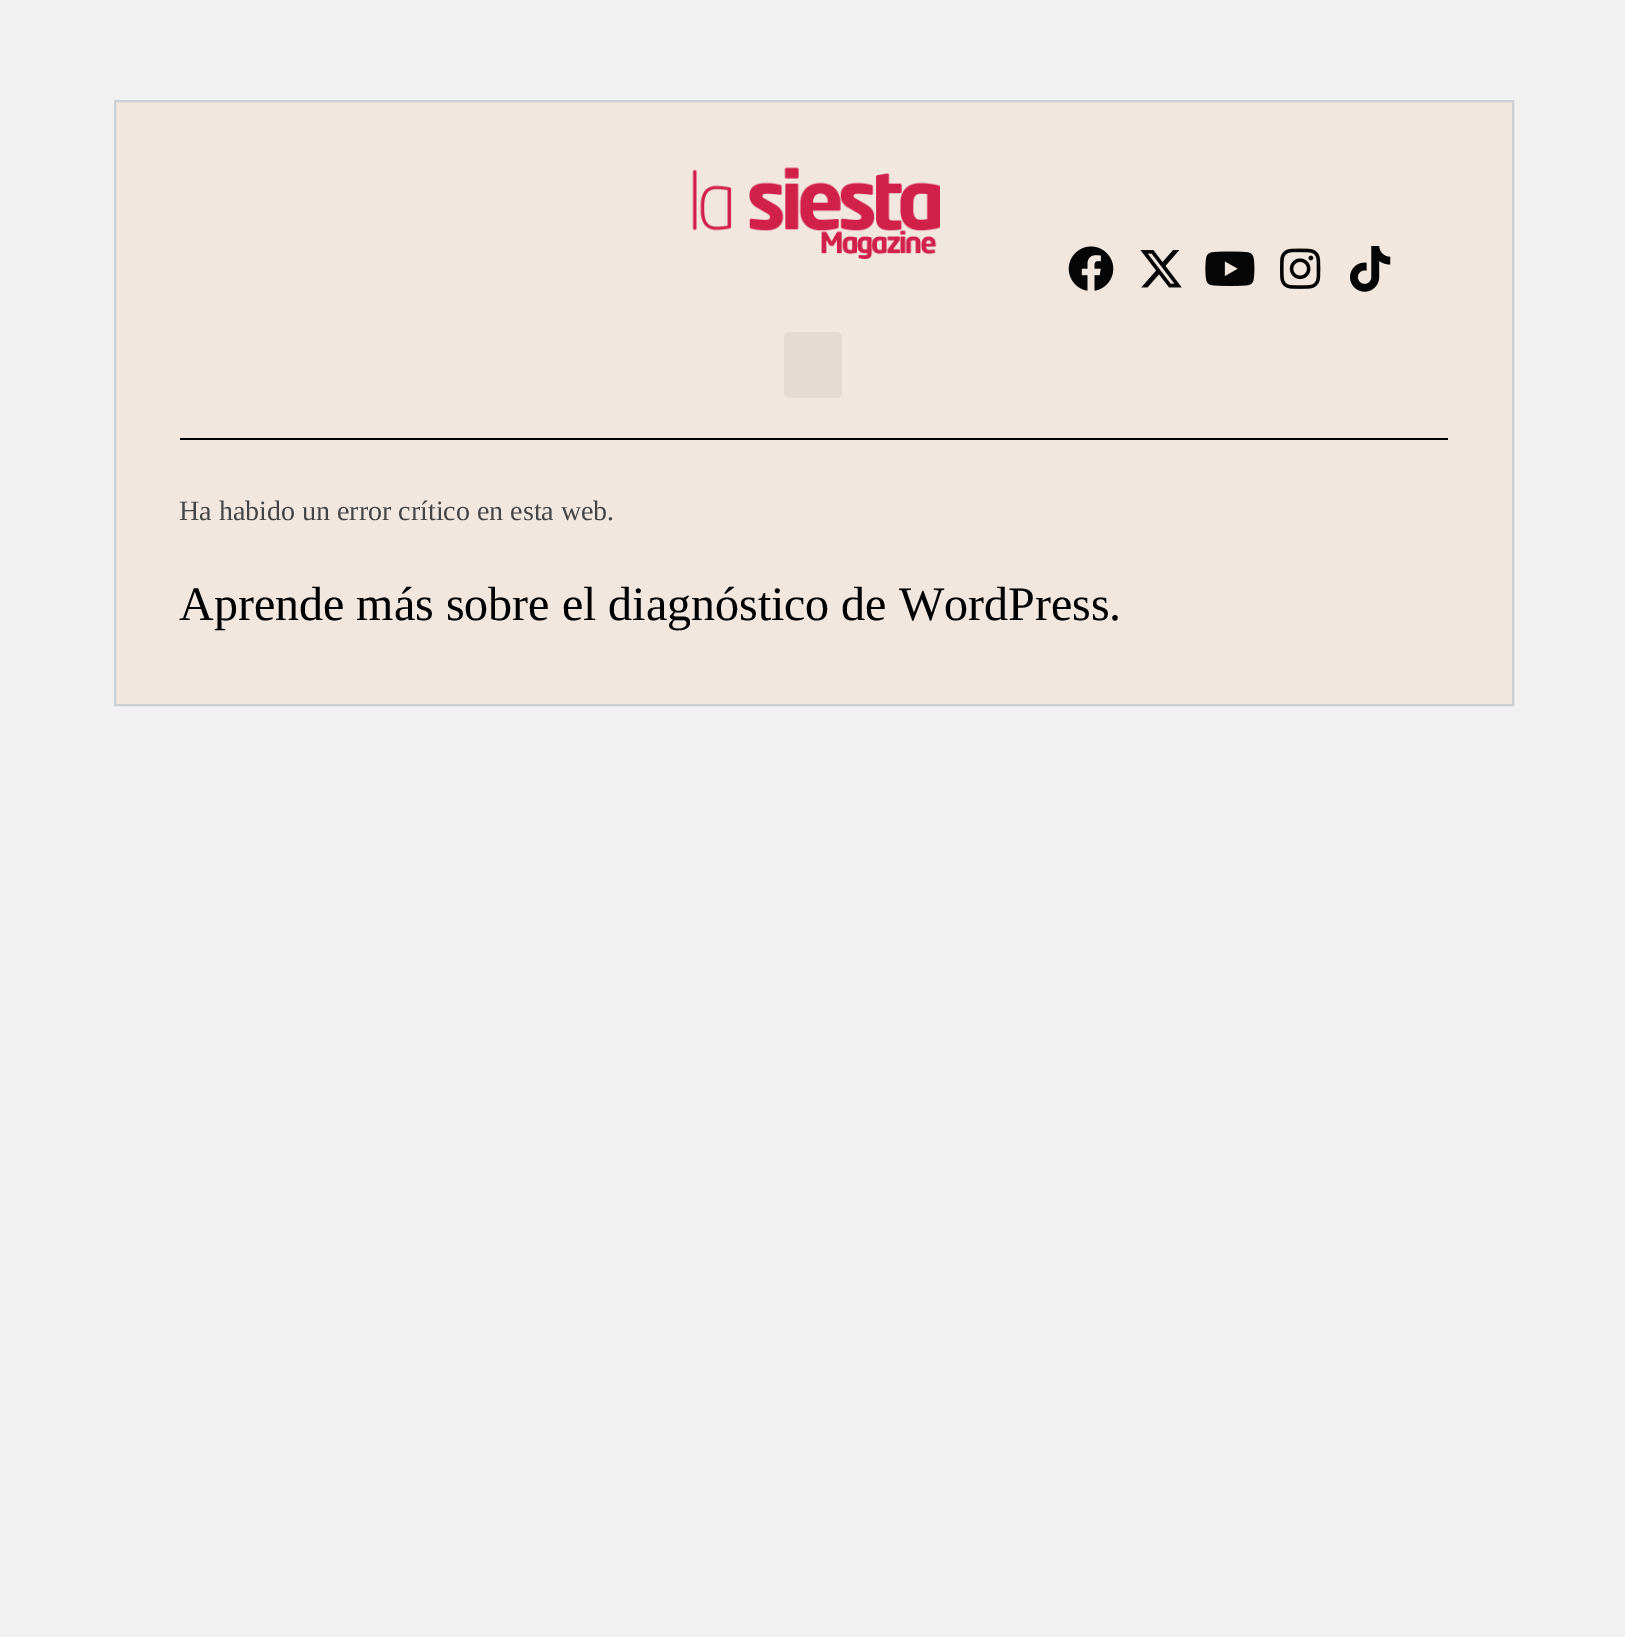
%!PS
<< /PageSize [1625 1637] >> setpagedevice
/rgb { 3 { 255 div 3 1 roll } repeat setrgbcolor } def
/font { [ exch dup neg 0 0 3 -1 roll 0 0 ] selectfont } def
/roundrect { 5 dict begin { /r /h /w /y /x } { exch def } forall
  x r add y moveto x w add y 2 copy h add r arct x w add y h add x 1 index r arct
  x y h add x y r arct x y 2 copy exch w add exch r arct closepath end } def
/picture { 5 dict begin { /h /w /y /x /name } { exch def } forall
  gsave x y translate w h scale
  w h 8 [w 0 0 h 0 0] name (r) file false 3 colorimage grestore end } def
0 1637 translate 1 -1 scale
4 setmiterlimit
241 241 241 rgb
0 0 1625 1637 rectfill
242 231 223 rgb
115 101 moveto 1513 101 lineto 1513 705 lineto 115 705 lineto closepath gsave fill grestore
204 208 212 rgb
2 setlinewidth
stroke
(img/1.rgb) 692 167 248 92 picture
(img/2.rgb) 1068 246 46 45 picture
(img/3.rgb) 1140 250 42 38 picture
(img/4.rgb) 1205 251 50 35 picture
(img/5.rgb) 1280 248 41 41 picture
(img/6.rgb) 1350 246 41 46 picture
0 0 0 rgb
180 438 1268 2 rectfill
230 219 212 rgb
784 332 58 66 6 roundrect fill
/LiberationSerif-Regular 28 font
68 68 68 rgb
179 520 moveto (Ha habido un error crítico en esta web.) show
/LiberationSerif-Regular 48 font
0 0 0 rgb
179 620 moveto (Aprende más sobre el diagnóstico de WordPress.) show
showpage
